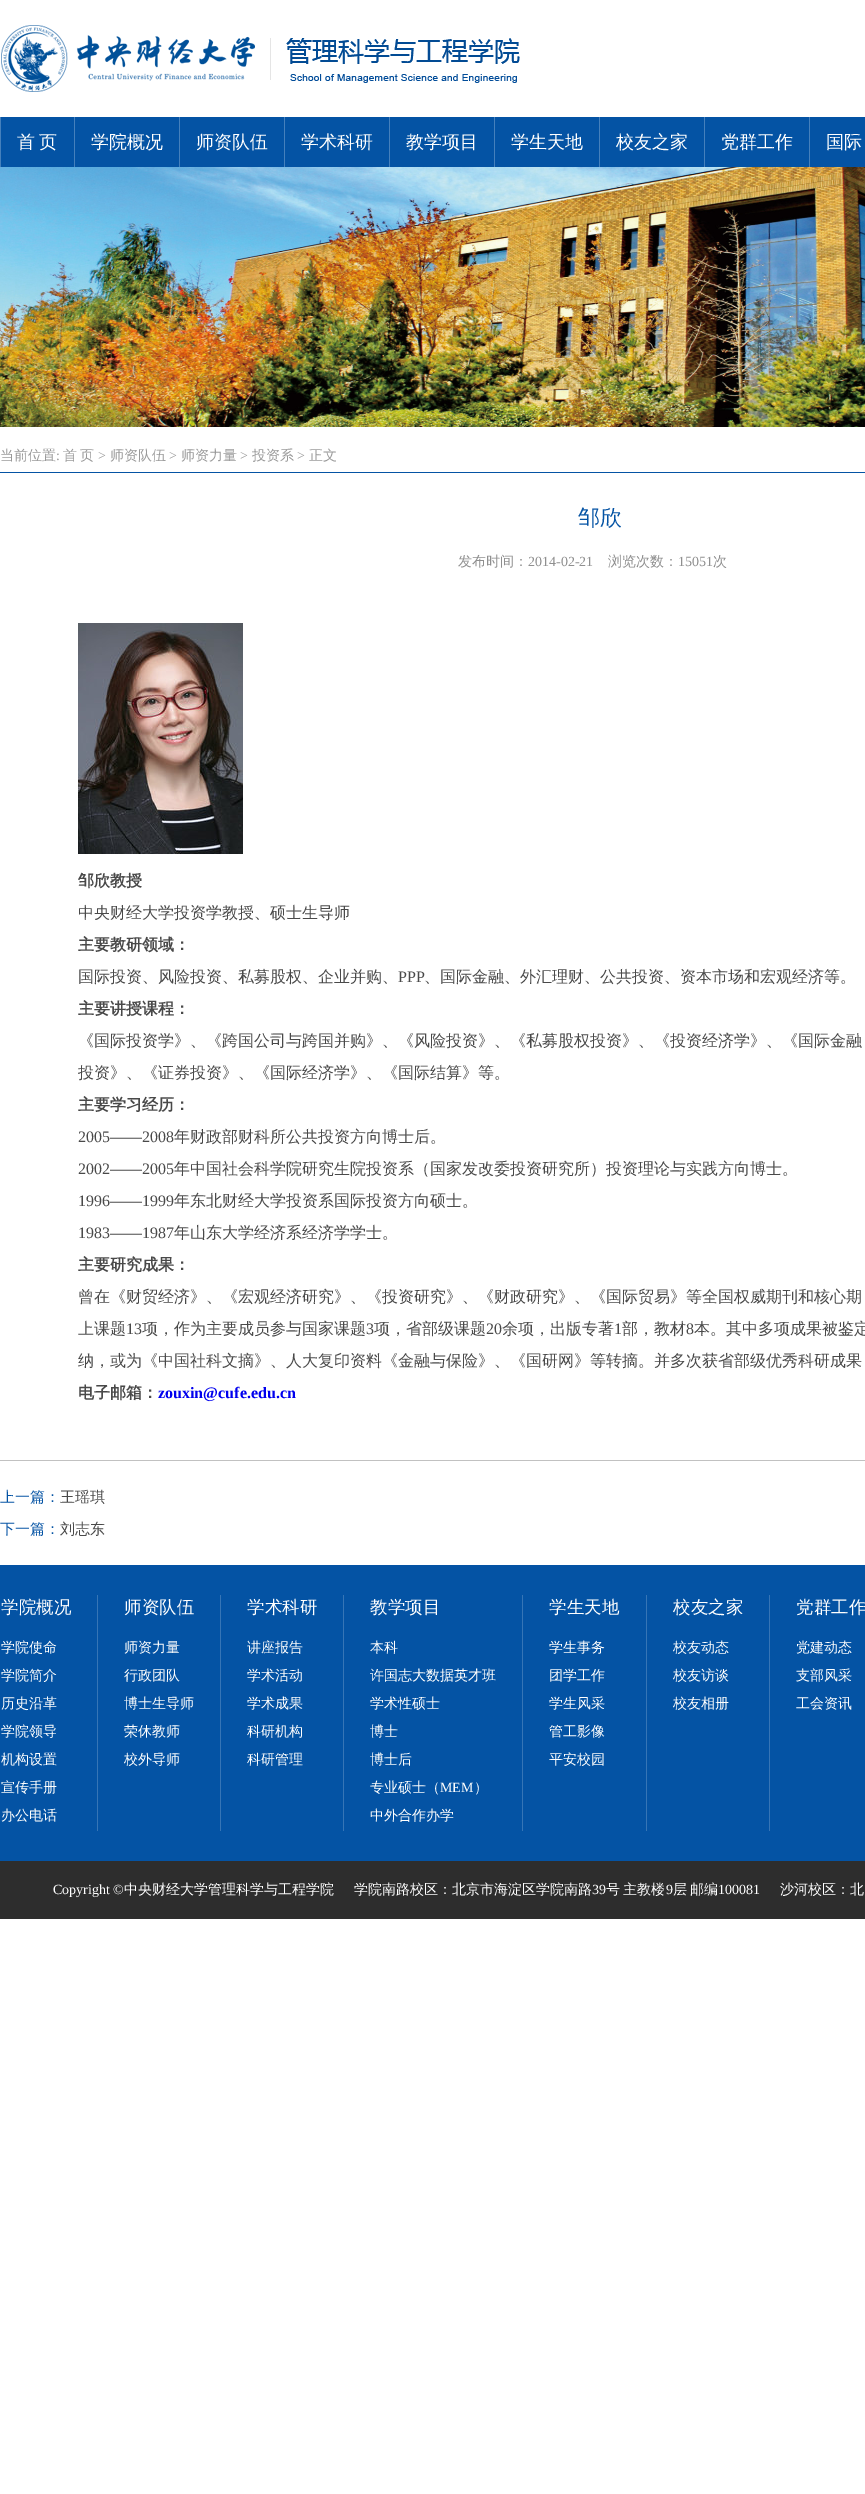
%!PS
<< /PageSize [865 2494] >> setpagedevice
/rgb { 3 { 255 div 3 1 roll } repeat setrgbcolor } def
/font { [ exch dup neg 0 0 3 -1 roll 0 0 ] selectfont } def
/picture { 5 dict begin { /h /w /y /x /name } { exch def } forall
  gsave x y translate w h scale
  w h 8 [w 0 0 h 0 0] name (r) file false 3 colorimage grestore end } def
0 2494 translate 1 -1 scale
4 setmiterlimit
255 255 255 rgb
0 0 865 2494 rectfill
(img/1.rgb) 1 25 519 67 picture
[
  [1 117 864 50 4 83 164]
  [74 117 1 50 69 128 188]
  [0 117 1 50 69 128 188]
  [179 117 1 50 69 128 188]
  [284 117 1 50 69 128 188]
  [389 117 1 50 69 128 188]
  [494 117 1 50 69 128 188]
  [599 117 1 50 69 128 188]
  [704 117 1 50 69 128 188]
  [809 117 1 50 69 128 188]
] { aload pop rgb rectfill } forall
(img/2.rgb) 0 167 865 260 picture
4 83 164 rgb
0 472 865 1 rectfill
(img/3.rgb) 78 623 165 231 picture
[
  [0 1460 865 1 193 193 193]
  [0 1565 865 296 4 83 164]
  [97 1595 1 236 54 117 182]
  [220 1595 1 236 54 117 182]
  [343 1595 1 236 54 117 182]
  [522 1595 1 236 54 117 182]
  [646 1595 1 236 54 117 182]
  [769 1595 1 236 54 117 182]
  [0 1861 865 58 45 45 45]
] { aload pop rgb rectfill } forall
/WenQuanYiZenHei-Medium 18 font
255 255 255 rgb
17 148 moveto -1 0 32 (首 页) widthshow
[
  [(学院概况) 91 148]
  [(师资队伍) 196 148]
  [(学术科研) 301 148]
  [(教学项目) 406 148]
  [(学生天地) 511 148]
  [(校友之家) 616 148]
  [(党群工作) 721 148]
  [(国际) 826 148]
] { aload pop moveto show } forall
/WenQuanYiZenHei-Medium 14 font
153 153 153 rgb
0 460 moveto (当前位置) show
/LiberationSerif-Regular 14 font
56 460 moveto (:) show
/WenQuanYiZenHei-Medium 14 font
63 460 moveto -1 0 32 (首 页) widthshow
/LiberationSerif-Regular 14 font
98 460 moveto (>) show
/WenQuanYiZenHei-Medium 14 font
110 460 moveto (师资队伍) show
/LiberationSerif-Regular 14 font
169 460 moveto (>) show
/WenQuanYiZenHei-Medium 14 font
181 460 moveto (师资力量) show
/LiberationSerif-Regular 14 font
240 460 moveto (>) show
/WenQuanYiZenHei-Medium 14 font
252 460 moveto (投资系) show
/LiberationSerif-Regular 14 font
297 460 moveto (>) show
/WenQuanYiZenHei-Medium 14 font
309 460 moveto (正文) show
/WenQuanYiZenHei-Medium 22 font
4 83 164 rgb
578 525 moveto (邹欣) show
/WenQuanYiZenHei-Medium 14 font
143 143 143 rgb
458 566 moveto (发布时间：) show
/LiberationSerif-Regular 14 font
528 566 moveto (2014-02-21) show
/WenQuanYiZenHei-Medium 14 font
608 566 moveto (浏览次数：) show
/LiberationSerif-Regular 14 font
678 566 moveto (15051) show
/WenQuanYiZenHei-Medium 14 font
713 566 moveto (次) show
/WenQuanYiZenHei-Bold 16 font
73 73 73 rgb
78 886 moveto (邹欣教授) show
/WenQuanYiZenHei-Medium 16 font
78 918 moveto (中央财经大学投资学教授、硕士生导师) show
/WenQuanYiZenHei-Bold 16 font
78 950 moveto (主要教研领域：) show
/WenQuanYiZenHei-Medium 16 font
78 982 moveto (国际投资、风险投资、私募股权、企业并购、) show
/LiberationSerif-Regular 16 font
398 982 moveto (PPP) show
/WenQuanYiZenHei-Medium 16 font
424 982 moveto (、国际金融、外汇理财、公共投资、资本市场和宏观经济等。) show
/WenQuanYiZenHei-Bold 16 font
78 1014 moveto (主要讲授课程：) show
/WenQuanYiZenHei-Medium 16 font
78 1046 moveto (《国际投资学》、《跨国公司与跨国并购》、《风险投资》、《私募股权投资》、《投资经济学》、《国际金融) show
78 1078 moveto (投资》、《证券投资》、《国际经济学》、《国际结算》等。) show
/WenQuanYiZenHei-Bold 16 font
78 1110 moveto (主要学习经历：) show
/LiberationSerif-Regular 16 font
78 1142 moveto (2005——2008) show
/WenQuanYiZenHei-Medium 16 font
174 1142 moveto (年财政部财科所公共投资方向博士后。) show
/LiberationSerif-Regular 16 font
78 1174 moveto (2002——2005) show
/WenQuanYiZenHei-Medium 16 font
174 1174 moveto (年中国社会科学院研究生院投资系（国家发改委投资研究所）投资理论与实践方向博士。) show
/LiberationSerif-Regular 16 font
78 1206 moveto (1996——1999) show
/WenQuanYiZenHei-Medium 16 font
174 1206 moveto (年东北财经大学投资系国际投资方向硕士。) show
/LiberationSerif-Regular 16 font
78 1238 moveto (1983——1987) show
/WenQuanYiZenHei-Medium 16 font
174 1238 moveto (年山东大学经济系经济学学士。) show
/WenQuanYiZenHei-Bold 16 font
78 1270 moveto (主要研究成果：) show
/WenQuanYiZenHei-Medium 16 font
78 1302 moveto (曾在《财贸经济》、《宏观经济研究》、《投资研究》、《财政研究》、《国际贸易》等全国权威期刊和核心期) show
78 1334 moveto (上课题) show
/LiberationSerif-Regular 16 font
126 1334 moveto (13) show
/WenQuanYiZenHei-Medium 16 font
142 1334 moveto (项，作为主要成员参与国家课题) show
/LiberationSerif-Regular 16 font
366 1334 moveto (3) show
/WenQuanYiZenHei-Medium 16 font
374 1334 moveto (项，省部级课题) show
/LiberationSerif-Regular 16 font
486 1334 moveto (20) show
/WenQuanYiZenHei-Medium 16 font
502 1334 moveto (余项，出版专著) show
/LiberationSerif-Regular 16 font
614 1334 moveto (1) show
/WenQuanYiZenHei-Medium 16 font
622 1334 moveto (部，教材) show
/LiberationSerif-Regular 16 font
686 1334 moveto (8) show
/WenQuanYiZenHei-Medium 16 font
694 1334 moveto (本。其中多项成果被鉴定) show
78 1366 moveto (纳，或为《中国社科文摘》、人大复印资料《金融与保险》、《国研网》等转摘。并多次获省部级优秀科研成果) show
/WenQuanYiZenHei-Bold 16 font
78 1398 moveto (电子邮箱：) show
/LiberationSerif-Bold 16 font
0 0 238 rgb
158 1398 moveto (zouxin@cufe.edu.cn) show
/WenQuanYiZenHei-Medium 15 font
4 83 164 rgb
0 1502 moveto (上一篇：) show
73 73 73 rgb
60 1502 moveto (王瑶琪) show
4 83 164 rgb
0 1534 moveto (下一篇：) show
73 73 73 rgb
60 1534 moveto (刘志东) show
/WenQuanYiZenHei-Medium 17.5 font
255 255 255 rgb
1 1613 moveto (学院概况) show
/WenQuanYiZenHei-Medium 14 font
[
  [(学院使命) 1 1652]
  [(学院简介) 1 1680]
  [(历史沿革) 1 1708]
  [(学院领导) 1 1736]
  [(机构设置) 1 1764]
  [(宣传手册) 1 1792]
  [(办公电话) 1 1820]
] { aload pop moveto show } forall
/WenQuanYiZenHei-Medium 17.5 font
124 1613 moveto (师资队伍) show
/WenQuanYiZenHei-Medium 14 font
[
  [(师资力量) 124 1652]
  [(行政团队) 124 1680]
  [(博士生导师) 124 1708]
  [(荣休教师) 124 1736]
  [(校外导师) 124 1764]
] { aload pop moveto show } forall
/WenQuanYiZenHei-Medium 17.5 font
247 1613 moveto (学术科研) show
/WenQuanYiZenHei-Medium 14 font
[
  [(讲座报告) 247 1652]
  [(学术活动) 247 1680]
  [(学术成果) 247 1708]
  [(科研机构) 247 1736]
  [(科研管理) 247 1764]
] { aload pop moveto show } forall
/WenQuanYiZenHei-Medium 17.5 font
370 1613 moveto (教学项目) show
/WenQuanYiZenHei-Medium 14 font
[
  [(本科) 370 1652]
  [(许国志大数据英才班) 370 1680]
  [(学术性硕士) 370 1708]
  [(博士) 370 1736]
  [(博士后) 370 1764]
  [(专业硕士（) 370 1792]
] { aload pop moveto show } forall
/LiberationSerif-Regular 14 font
440 1792 moveto (MEM) show
/WenQuanYiZenHei-Medium 14 font
474 1792 moveto (）) show
370 1820 moveto (中外合作办学) show
/WenQuanYiZenHei-Medium 17.5 font
549 1613 moveto (学生天地) show
/WenQuanYiZenHei-Medium 14 font
[
  [(学生事务) 549 1652]
  [(团学工作) 549 1680]
  [(学生风采) 549 1708]
  [(管工影像) 549 1736]
  [(平安校园) 549 1764]
] { aload pop moveto show } forall
/WenQuanYiZenHei-Medium 17.5 font
673 1613 moveto (校友之家) show
/WenQuanYiZenHei-Medium 14 font
[
  [(校友动态) 673 1652]
  [(校友访谈) 673 1680]
  [(校友相册) 673 1708]
] { aload pop moveto show } forall
/WenQuanYiZenHei-Medium 17.5 font
796 1613 moveto (党群工作) show
/WenQuanYiZenHei-Medium 14 font
[
  [(党建动态) 796 1652]
  [(支部风采) 796 1680]
  [(工会资讯) 796 1708]
] { aload pop moveto show } forall
/LiberationSerif-Regular 14 font
53 1894 moveto (Copyright ©) show
/WenQuanYiZenHei-Medium 14 font
124 1894 moveto (中央财经大学管理科学与工程学院) show
354 1894 moveto (学院南路校区：北京市海淀区学院南路) show
/LiberationSerif-Regular 14 font
592 1894 moveto (39) show
/WenQuanYiZenHei-Medium 14 font
606 1894 moveto -1 0 32 (号 主教楼) widthshow
/LiberationSerif-Regular 14 font
666 1894 moveto (9) show
/WenQuanYiZenHei-Medium 14 font
673 1894 moveto -1 0 32 (层 邮编) widthshow
/LiberationSerif-Regular 14 font
718 1894 moveto (100081) show
/WenQuanYiZenHei-Medium 14 font
780 1894 moveto (沙河校区：北) show
showpage
